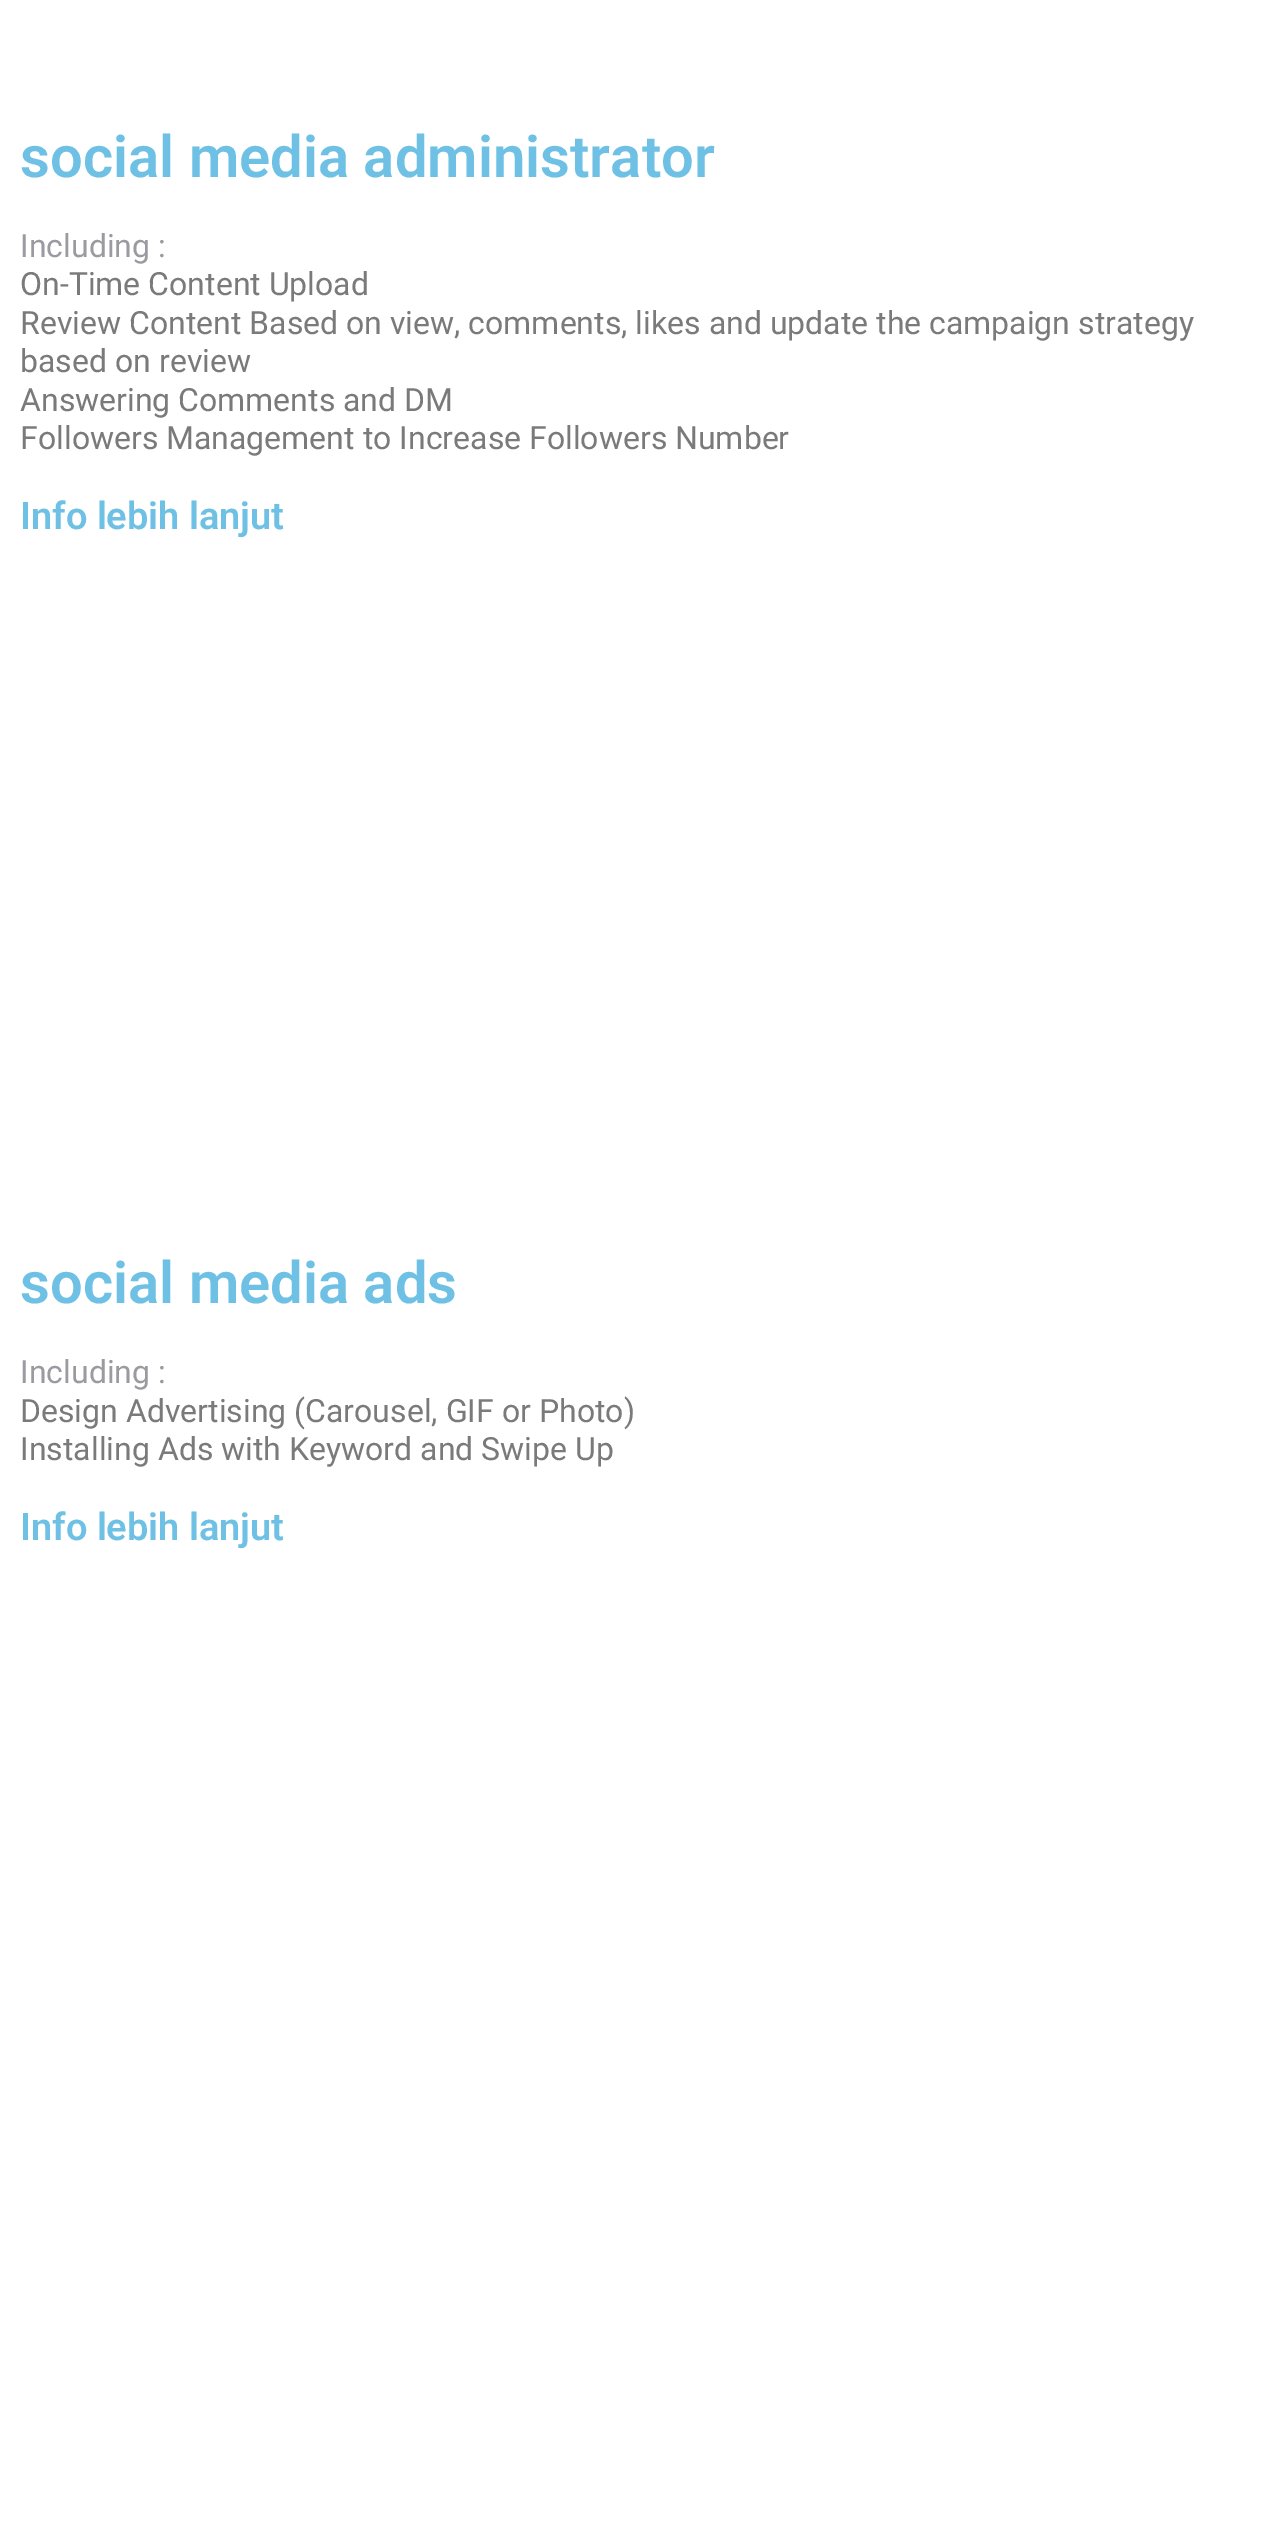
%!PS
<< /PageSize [1282 2534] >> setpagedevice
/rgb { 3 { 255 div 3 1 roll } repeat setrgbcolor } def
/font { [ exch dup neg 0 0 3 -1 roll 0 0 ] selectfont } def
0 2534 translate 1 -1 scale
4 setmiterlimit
255 255 255 rgb
0 0 1282 2534 rectfill
/Roboto-SemiBold 58 font
110 193 228 rgb
20 177 moveto (social media administrator) show
/Roboto-Regular 32 font
155 154 160 rgb
20 257 moveto (Including :) show
122 122 122 rgb
[
  [(On-Time Content Upload) 20 295]
  [(Review Content Based on view, comments, likes and update the campaign strategy) 20 334]
  [(based on review) 20 372]
  [(Answering Comments and DM) 20 411]
  [(Followers Management to Increase Followers Number) 20 449]
] { aload pop moveto show } forall
/Roboto-SemiBold 38 font
110 193 228 rgb
20 529 moveto (Info lebih lanjut) show
/Roboto-SemiBold 58 font
20 1303 moveto (social media ads) show
/Roboto-Regular 32 font
155 154 160 rgb
20 1383 moveto (Including :) show
122 122 122 rgb
20 1422 moveto (Design Advertising \(Carousel, GIF or Photo\)) show
20 1460 moveto (Installing Ads with Keyword and Swipe Up) show
/Roboto-SemiBold 38 font
110 193 228 rgb
20 1540 moveto (Info lebih lanjut) show
showpage
